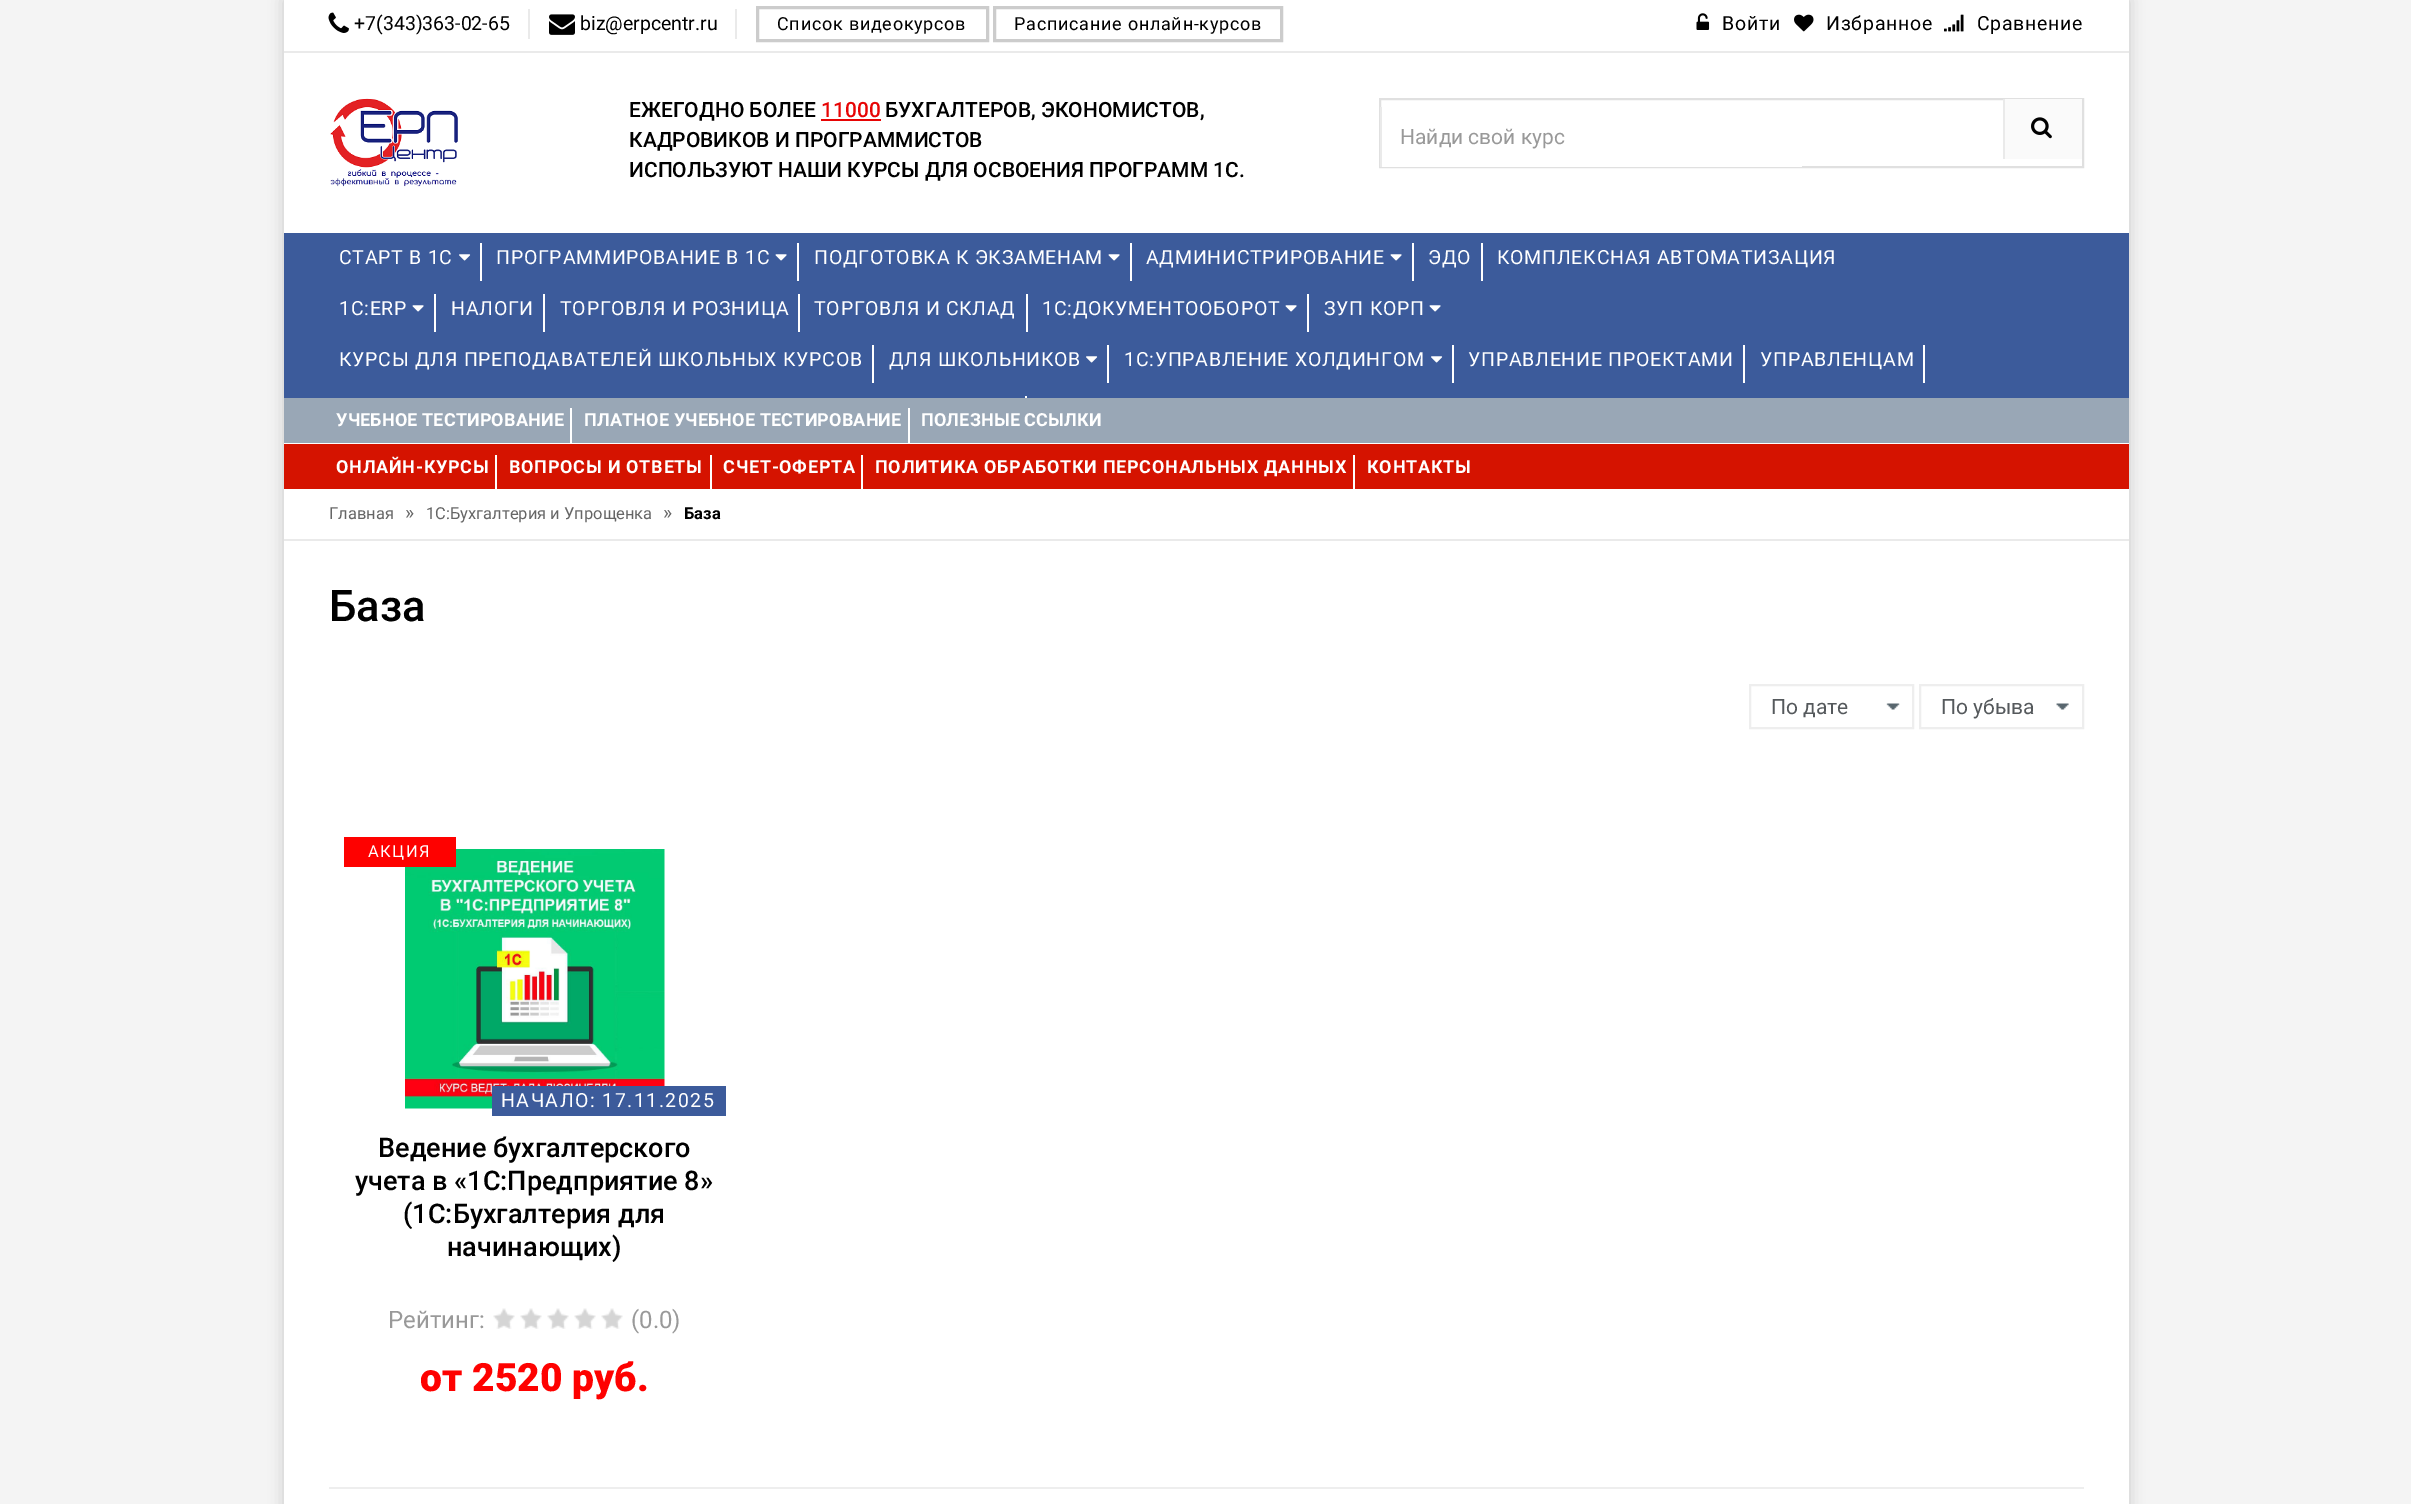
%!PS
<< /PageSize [2411 1504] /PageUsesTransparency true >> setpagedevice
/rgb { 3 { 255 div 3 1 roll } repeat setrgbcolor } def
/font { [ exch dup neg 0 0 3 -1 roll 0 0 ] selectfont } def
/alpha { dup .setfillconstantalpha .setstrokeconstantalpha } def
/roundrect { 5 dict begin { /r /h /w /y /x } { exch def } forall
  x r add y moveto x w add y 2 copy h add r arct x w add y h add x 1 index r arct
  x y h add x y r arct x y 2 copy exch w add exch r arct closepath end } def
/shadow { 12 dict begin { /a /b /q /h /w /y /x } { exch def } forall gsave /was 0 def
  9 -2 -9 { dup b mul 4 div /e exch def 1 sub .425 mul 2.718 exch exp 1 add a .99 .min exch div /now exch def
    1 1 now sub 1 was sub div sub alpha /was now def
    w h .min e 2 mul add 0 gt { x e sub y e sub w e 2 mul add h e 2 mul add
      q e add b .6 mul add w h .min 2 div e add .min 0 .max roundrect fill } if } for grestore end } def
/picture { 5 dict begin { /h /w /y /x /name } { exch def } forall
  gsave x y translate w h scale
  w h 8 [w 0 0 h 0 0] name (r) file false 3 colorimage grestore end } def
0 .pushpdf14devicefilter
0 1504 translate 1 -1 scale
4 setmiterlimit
244 244 244 rgb
0 0 2411 1504 rectfill
0 0 0 rgb
284 0 1845 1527 0 7.5 0.17 shadow
[
  [284 0 1845 1504 255 255 255]
  [284 51 1845 2 234 234 234]
  [528 9 2 30 234 234 234]
] { aload pop rgb rectfill } forall
(img/1.rgb) 328 12 21 21 picture
735 9 2 30 rectfill
(img/2.rgb) 549 14 26 21 picture
204 204 204 rgb
3 setlinewidth
757.5 7.5 230 33 rectstroke
994.5 7.5 287 33 rectstroke
(img/3.rgb) 1696 13 14 17 picture
(img/4.rgb) 1794 14 20 18 picture
(img/5.rgb) 1944 14 20 18 picture
(img/6.rgb) 330 98 128 89 picture
231 5 5 rgb
821 119 60 2 rectfill
224 224 224 rgb
2 setlinewidth
1380 99 703 68 rectstroke
[
  [1382 166 420 1 255 255 255]
  [1380 107 2 60 234 234 234]
  [2005 99 77 60 250 250 250]
  [2003 99 2 60 234 234 234]
] { aload pop rgb rectfill } forall
(img/7.rgb) 2031 117 21 22 picture
60 91 155 rgb
284 233 1845 165 rectfill
(img/8.rgb) 459 254 12 7 picture
255 255 255 rgb
480 243 2 38 rectfill
(img/9.rgb) 775 254 12 7 picture
797 243 2 38 rectfill
(img/9.rgb) 1108 254 12 7 picture
1130 243 2 38 rectfill
(img/9.rgb) 1390 254 12 7 picture
1412 243 2 38 rectfill
1481 243 2 38 rectfill
(img/9.rgb) 412 305 12 7 picture
[
  [434 294 2 38 255 255 255]
  [543 294 2 38 255 255 255]
  [798 294 2 38 255 255 255]
  [1026 294 2 38 255 255 255]
] { aload pop rgb rectfill } forall
(img/9.rgb) 1285 305 12 7 picture
1307 294 2 38 rectfill
(img/9.rgb) 1429 305 12 7 picture
872 345 2 38 rectfill
(img/8.rgb) 1086 356 12 7 picture
1107 345 2 38 rectfill
(img/8.rgb) 1431 356 12 7 picture
[
  [1452 345 2 38 255 255 255]
  [1743 345 2 38 255 255 255]
  [1923 345 2 38 255 255 255]
  [1025 396 2 2 255 255 255]
  [284 398 1845 45 153 167 182]
  [284 444 1845 45 213 19 0]
  [570 408 2 38 255 255 255]
  [908 408 2 38 255 255 255]
  [570 444 340 2 213 19 0]
  [495 455 2 37 255 255 255]
  [710 455 2 37 255 255 255]
  [861 455 2 37 255 255 255]
  [1353 455 2 37 255 255 255]
  [284 539 1845 2 234 234 234]
] { aload pop rgb rectfill } forall
(img/10.rgb) 1886 703 14 7 picture
238 238 238 rgb
1750 685 163 43 rectstroke
(img/11.rgb) 2056 703 13 7 picture
1920 685 163 43 rectstroke
(img/12.rgb) 405 849 260 260 picture
254 1 0 rgb
344 837 112 30 rectfill
60 91 155 rgb
492 1086 234 30 rectfill
(img/13.rgb) 493 1308 130 21 picture
238 238 238 rgb
329 1487 1755 2 rectfill
/Roboto-Regular 19.5 font
0 0 0 rgb
354 30 moveto (+7\(343\)363-02-65) show
580 30 moveto (biz@erpcentr.ru) show
/Roboto-Regular 18 font
777 30 moveto 0.75 0 (Список видеокурсов) ashow
1014 30 moveto 0.75 0 (Расписание онлайн-курсов) ashow
/Roboto-Regular 19.5 font
1722 30 moveto 0.75 0 (Войти) ashow
1826 30 moveto 0.75 0 (Избранное) ashow
1977 30 moveto 0.75 0 (Сравнение) ashow
/Roboto-Medium 21 font
629 117 moveto (ЕЖЕГОДНО БОЛЕЕ) show
231 5 5 rgb
821 117 moveto (11000) show
0 0 0 rgb
[
  [(БУХГАЛТЕРОВ, ЭКОНОМИСТОВ,) 885 117]
  [(КАДРОВИКОВ И ПРОГРАММИСТОВ) 629 147]
  [(ИСПОЛЬЗУЮТ НАШИ КУРСЫ ДЛЯ ОСВОЕНИЯ ПРОГРАММ 1С.) 629 177]
] { aload pop moveto show } forall
/Roboto-Regular 21 font
153 153 153 rgb
1400 144 moveto (Найди свой курс) show
/Roboto-Regular 19.5 font
255 255 255 rgb
339 264 moveto 0.75 0 (СТАРТ В 1С) ashow
496 264 moveto 0.75 0 (ПРОГРАММИРОВАНИЕ В 1С) ashow
814 264 moveto 0.75 0 (ПОДГОТОВКА К ЭКЗАМЕНАМ) ashow
1146 264 moveto 0.75 0 (АДМИНИСТРИРОВАНИЕ) ashow
1428 264 moveto 0.75 0 (ЭДО) ashow
1497 264 moveto 0.75 0 (КОМПЛЕКСНАЯ АВТОМАТИЗАЦИЯ) ashow
339 315 moveto 0.75 0 (1С:ERP) ashow
451 315 moveto 0.75 0 (НАЛОГИ) ashow
560 315 moveto 0.75 0 (ТОРГОВЛЯ И РОЗНИЦА) ashow
814 315 moveto 0.75 0 (ТОРГОВЛЯ И СКЛАД) ashow
1042 315 moveto 0.75 0 (1С:ДОКУМЕНТООБОРОТ) ashow
1324 315 moveto 0.75 0 (ЗУП КОРП) ashow
339 366 moveto 0.75 0 (КУРСЫ ДЛЯ ПРЕПОДАВАТЕЛЕЙ ШКОЛЬНЫХ КУРСОВ) ashow
889 366 moveto 0.75 0 (ДЛЯ ШКОЛЬНИКОВ) ashow
1124 366 moveto 0.75 0 (1С:УПРАВЛЕНИЕ ХОЛДИНГОМ) ashow
1468 366 moveto 0.75 0 (УПРАВЛЕНИЕ ПРОЕКТАМИ) ashow
1760 366 moveto 0.75 0 (УПРАВЛЕНЦАМ) ashow
/Roboto-Bold 18 font
336 426 moveto 0.15 0 (УЧЕБНОЕ ТЕСТИРОВАНИЕ) ashow
584 426 moveto 0.15 0 (ПЛАТНОЕ УЧЕБНОЕ ТЕСТИРОВАНИЕ) ashow
921 426 moveto 0.15 0 (ПОЛЕЗНЫЕ ССЫЛКИ) ashow
336 473 moveto 0.75 0 (ОНЛАЙН-КУРСЫ) ashow
509 473 moveto 0.75 0 (ВОПРОСЫ И ОТВЕТЫ) ashow
723 473 moveto 0.75 0 (СЧЕТ-ОФЕРТА) ashow
875 473 moveto 0.75 0 (ПОЛИТИКА ОБРАБОТКИ ПЕРСОНАЛЬНЫХ ДАННЫХ) ashow
1367 473 moveto 0.75 0 (КОНТАКТЫ) ashow
/Roboto-Regular 16.5 font
102 102 102 rgb
329 519 moveto (Главная) show
/Roboto-Regular 19.5 font
405 519 moveto (») show
/Roboto-Regular 16.5 font
426 519 moveto (1С:Бухгалтерия и Упрощенка) show
/Roboto-Regular 19.5 font
663 519 moveto (») show
/Roboto-Bold 16.5 font
0 0 0 rgb
684 519 moveto (База) show
/Roboto-Medium 43.5 font
329 621 moveto (База) show
/Roboto-Regular 21 font
85 89 92 rgb
1771 714 moveto (По дате) show
1941 714 moveto (По убыва) show
/Roboto-Regular 16.5 font
255 255 255 rgb
368 857 moveto 1.5 0 (АКЦИЯ) ashow
/Roboto-Regular 19.5 font
501 1107 moveto 1.5 0 (НАЧАЛО: 17.11.2025) ashow
/Roboto-Medium 27 font
0 0 0 rgb
[
  [(Ведение бухгалтерского) 378 1157]
  [(учета в «1С:Предприятие 8») 355 1190]
  [(\(1С:Бухгалтерия для) 403 1223]
  [(начинающих\)) 447 1256]
] { aload pop moveto show } forall
/Roboto-Regular 24 font
153 153 153 rgb
388 1328 moveto (Рейтинг:) show
631 1328 moveto (\(0.0\)) show
/Roboto-Black 39 font
254 1 0 rgb
420 1391 moveto (от 2520 руб.) show
.poppdf14devicefilter showpage
